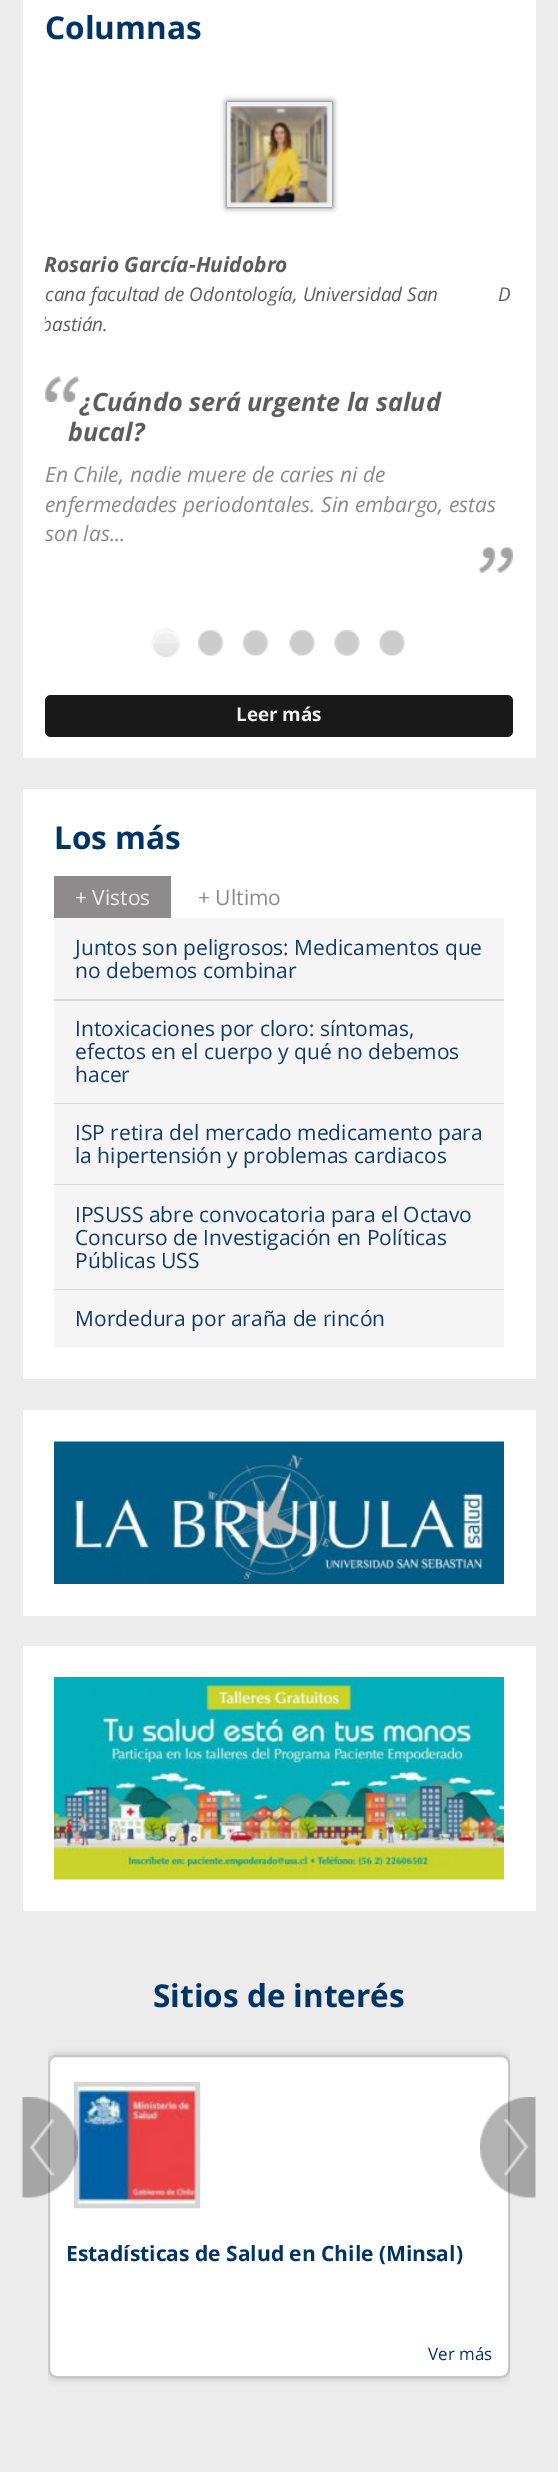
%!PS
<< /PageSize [558 2482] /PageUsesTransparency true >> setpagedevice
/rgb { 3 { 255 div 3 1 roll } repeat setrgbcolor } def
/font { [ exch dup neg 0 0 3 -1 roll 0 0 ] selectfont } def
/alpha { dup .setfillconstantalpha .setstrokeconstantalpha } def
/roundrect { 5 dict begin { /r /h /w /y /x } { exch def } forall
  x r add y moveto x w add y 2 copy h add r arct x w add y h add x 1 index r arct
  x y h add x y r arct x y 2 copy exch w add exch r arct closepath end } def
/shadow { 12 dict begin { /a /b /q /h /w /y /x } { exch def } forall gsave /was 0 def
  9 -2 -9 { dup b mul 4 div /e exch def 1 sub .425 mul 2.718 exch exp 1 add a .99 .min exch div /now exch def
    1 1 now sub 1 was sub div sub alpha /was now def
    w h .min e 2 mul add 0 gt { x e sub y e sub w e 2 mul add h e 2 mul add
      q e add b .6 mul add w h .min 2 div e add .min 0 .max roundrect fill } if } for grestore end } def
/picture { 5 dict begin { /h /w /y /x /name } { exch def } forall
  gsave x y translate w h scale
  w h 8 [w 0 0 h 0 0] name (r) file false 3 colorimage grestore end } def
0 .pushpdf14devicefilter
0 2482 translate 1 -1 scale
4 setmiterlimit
236 236 236 rgb
0 0 558 2482 rectfill
255 255 255 rgb
23 0 513 758 rectfill
57 57 57 rgb
227 102 105 105 0 3 1 shadow
240 240 240 rgb
227 102 105 105 rectfill
(img/1.rgb) 230 106 99 98 picture
(img/3.rgb) 478 547 35 26 picture
(img/4.rgb) 151 628 29 29 picture
(img/5.rgb) 198 630 26 26 picture
(img/5.rgb) 243 630 26 26 picture
(img/6.rgb) 289 630 26 26 picture
(img/6.rgb) 334 630 26 26 picture
(img/6.rgb) 379 630 26 26 picture
25 25 25 rgb
45 695 468 42 6 roundrect fill
[
  [23 789 513 590 255 255 255]
  [54 876 117 42 141 139 140]
  [54 918 450 81 245 245 245]
  [54 999 450 2 217 217 217]
  [54 1001 450 102 245 245 245]
  [54 1103 450 1 217 217 217]
  [54 1104 450 80 245 245 245]
  [54 1184 450 1 217 217 217]
  [54 1185 450 104 245 245 245]
  [54 1289 450 1 217 217 217]
  [54 1290 450 57 245 245 245]
  [23 1410 513 206 255 255 255]
] { aload pop rgb rectfill } forall
(img/7.rgb) 54 1441 450 143 picture
23 1646 513 265 rectfill
(img/8.rgb) 54 1677 450 203 picture
gsave
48 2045 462 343 rectclip
0 0 0 rgb
48 2055 462 323 9 4 0.2 shadow
grestore
49 2056 460 321 8 roundrect gsave fill grestore
201 201 201 rgb
2 setlinewidth
stroke
213 213 213 rgb
5 setlinewidth
76.5 2084.5 121 121 rectstroke
(img/11.rgb) 77 2086 120 119 picture
(img/9.rgb) 22 2097 56 101 picture
(img/10.rgb) 480 2097 56 101 picture
255 255 255 rgb
0 2472 558 10 rectfill
/OpenSans-Bold 31.5 font
0 51 102 rgb
45 39 moveto (Columnas) show
gsave
45 45 468 584 rectclip
/OpenSans-BoldItalic 21 font
93 93 93 rgb
44 272 moveto (Rosario García-Huidobro) show
grestore
/OpenSans-Italic 18.9 font
93 93 93 rgb
45 301 moveto (cana facultad de Odontología, Universidad San) show
gsave
45 45 468 584 rectclip
41 331 moveto (bastián.) show
grestore
/OpenSans-BoldItalic 25.25 font
80 411 moveto (¿Cuándo será urgente la salud) show
(img/2.rgb) 45 376 35 26 picture
68 441 moveto (bucal?) show
/OpenSans-Italic 21 font
137 137 137 rgb
[
  [(En Chile, nadie muere de caries ni de) 45 482]
  [(enfermedades periodontales. Sin embargo, estas) 45 512]
  [(son las...) 45 541]
] { aload pop moveto show } forall
/OpenSans-Italic 18.9 font
93 93 93 rgb
498 301 moveto (D) show
/OpenSans-Bold 18.9 font
240 240 240 rgb
236 721 moveto (Leer más) show
/OpenSans-Bold 31.5 font
0 51 102 rgb
54 849 moveto (Los más) show
/OpenSans-Regular 21 font
240 240 240 rgb
75 905 moveto (+ Vistos) show
137 137 137 rgb
198 905 moveto (+ Ultimo) show
20 58 108 rgb
[
  [(Juntos son peligrosos: Medicamentos que) 75 955]
  [(no debemos combinar) 75 978]
  [(Intoxicaciones por cloro: síntomas,) 75 1036]
  [(efectos en el cuerpo y qué no debemos) 75 1059]
  [(hacer) 75 1082]
  [(ISP retira del mercado medicamento para) 75 1140]
  [(la hipertensión y problemas cardiacos) 75 1163]
  [(IPSUSS abre convocatoria para el Octavo) 75 1222]
  [(Concurso de Investigación en Políticas) 75 1245]
  [(Públicas USS) 75 1268]
  [(Mordedura por araña de rincón) 75 1326]
] { aload pop moveto show } forall
/OpenSans-Bold 31.5 font
0 51 102 rgb
153 2007 moveto (Sitios de interés) show
/OpenSans-Bold 21 font
66 2261 moveto (Estadísticas de Salud en Chile \(Minsal\)) show
/OpenSans-Regular 17 font
428 2360 moveto (Ver más) show
.poppdf14devicefilter showpage
